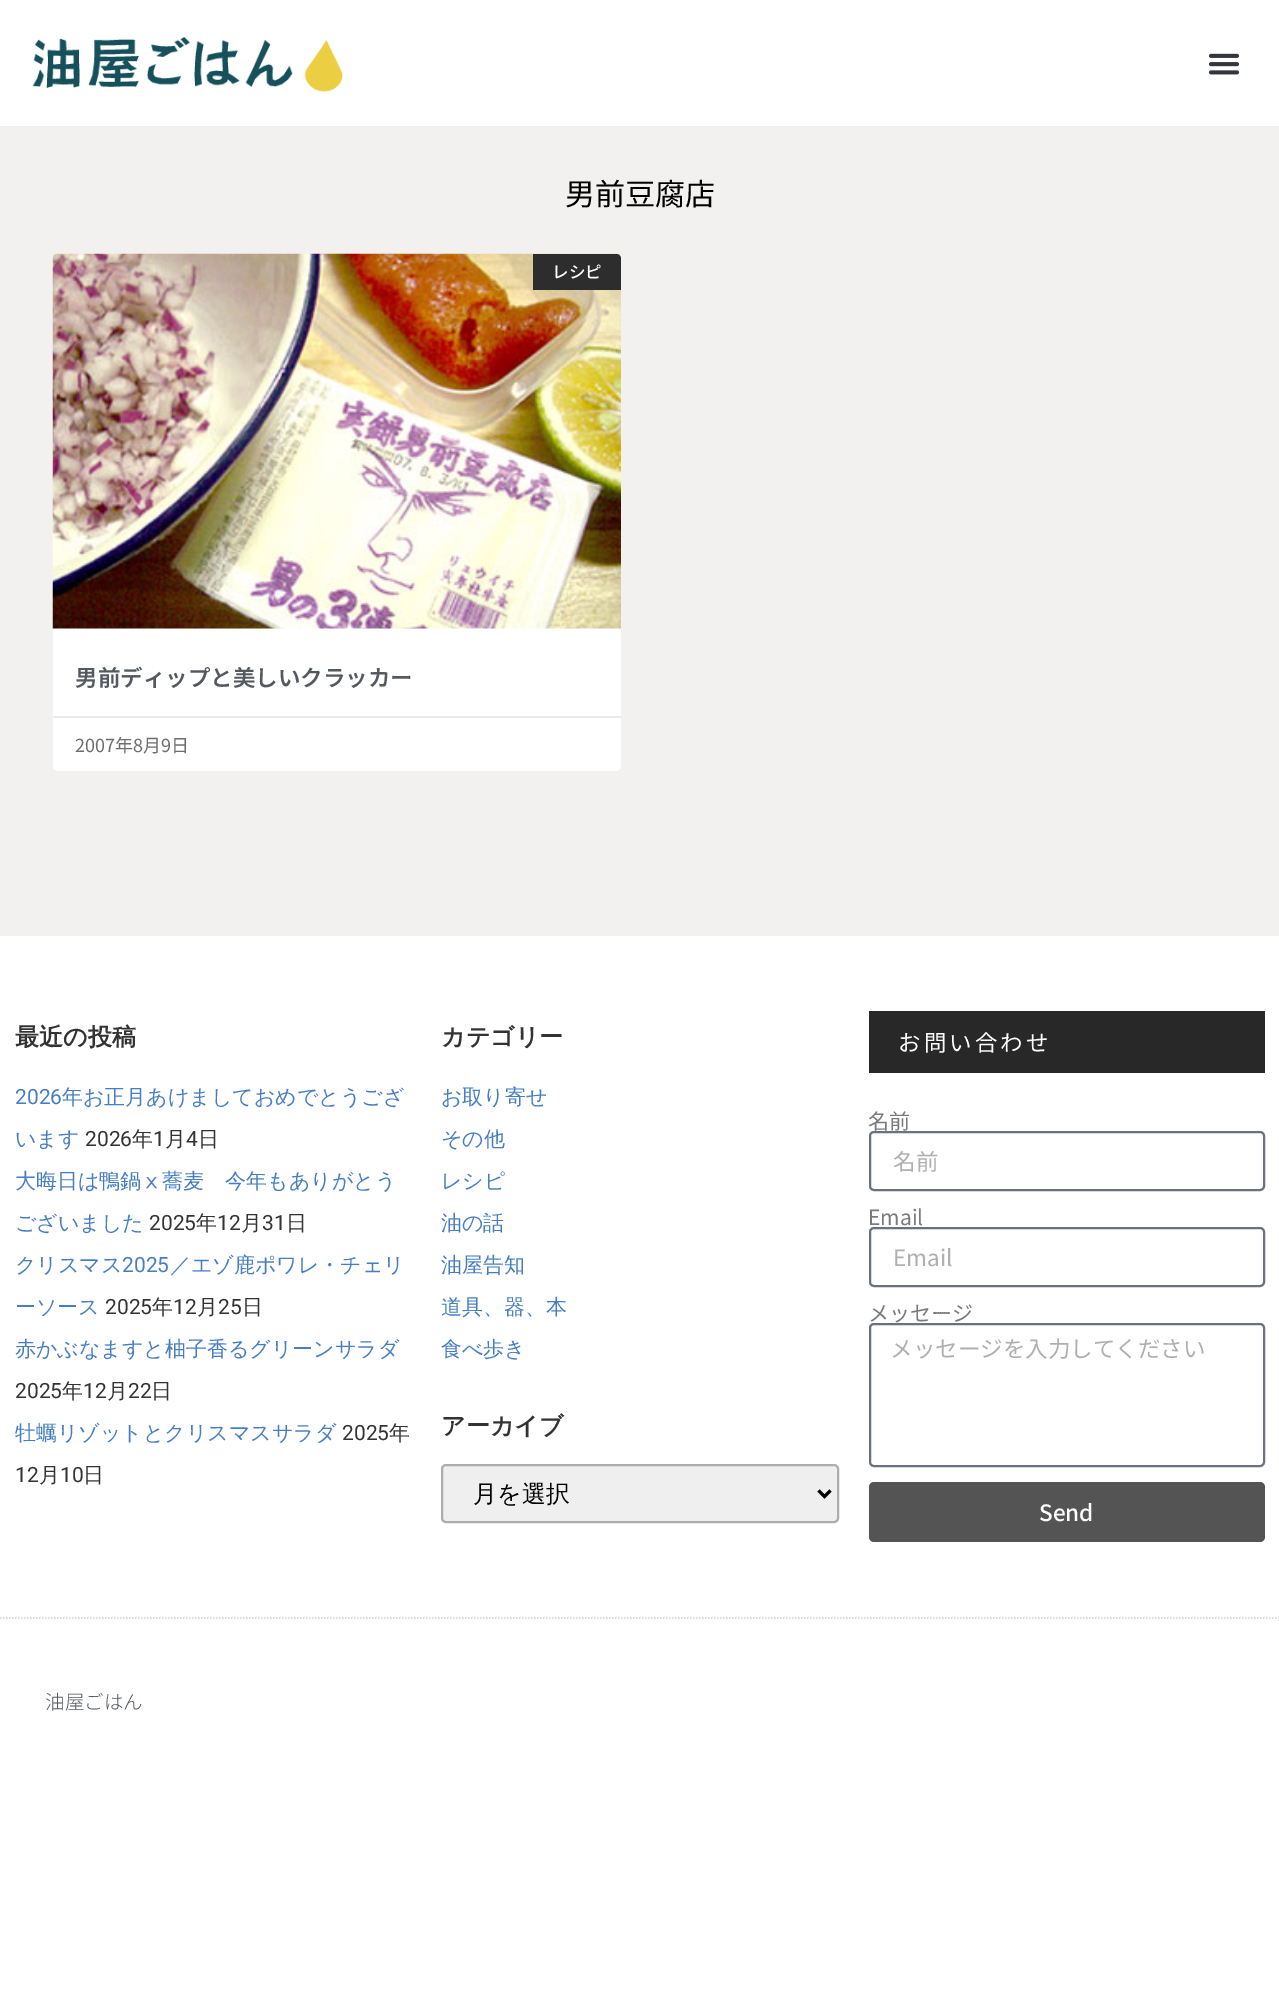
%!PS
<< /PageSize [1279 1996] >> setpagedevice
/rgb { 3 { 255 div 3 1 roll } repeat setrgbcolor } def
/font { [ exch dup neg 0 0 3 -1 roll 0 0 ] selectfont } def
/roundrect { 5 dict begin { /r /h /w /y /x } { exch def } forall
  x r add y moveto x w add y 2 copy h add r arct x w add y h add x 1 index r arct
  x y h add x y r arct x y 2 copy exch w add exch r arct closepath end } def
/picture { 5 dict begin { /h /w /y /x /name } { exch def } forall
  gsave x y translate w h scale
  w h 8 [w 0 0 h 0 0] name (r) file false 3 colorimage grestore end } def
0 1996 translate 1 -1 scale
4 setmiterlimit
255 255 255 rgb
0 0 1279 1996 rectfill
(img/1.rgb) 32 37 311 55 picture
(img/2.rgb) 1208 53 32 22 picture
242 241 239 rgb
0 126 1279 810 rectfill
255 255 255 rgb
53 254 568 517 5 roundrect fill
(img/3.rgb) 52 253 569 376 picture
45 45 45 rgb
533 254 moveto 616 254 lineto 619 254 621 256 621 259 curveto 621 290 lineto 533 290 lineto closepath fill
234 234 234 rgb
53 716 568 2 rectfill
239 239 239 rgb
442 1465 396 57 4 roundrect gsave fill grestore
173 173 173 rgb
2 setlinewidth
stroke
0 0 0 rgb
3 setlinewidth
818.5 1490.5 moveto 824.5 1496.5 lineto 830.5 1490.5 lineto stroke
40 40 40 rgb
869 1011 396 62 rectfill
105 114 125 rgb
2 setlinewidth
870 1132 394 58 4 roundrect stroke
870 1228 394 58 4 roundrect stroke
870 1324 394 142 4 roundrect stroke
84 84 84 rgb
869 1482 396 60 5 roundrect fill
214 214 214 rgb
1.5 setlinewidth
[1.5 1.5] 0 setdash
0 1618 moveto 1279.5 1618 lineto stroke
/NotoSansJP-Regular 30 font
0 0 0 rgb
565 205 moveto (男前豆腐店) show
/NotoSansJP-Medium 16.5 font
255 255 255 rgb
552 278 moveto (レシピ) show
/NotoSansJP-SemiBold 22.5 font
84 89 95 rgb
75 686 moveto (男前ディップと美しいクラッカー) show
/NotoSansJP-Regular 18 font
109 109 109 rgb
75 752 moveto (2007年8月9日) show
/WenQuanYiZenHei-Bold 24 font
51 51 51 rgb
15 1045 moveto (最近の投稿) show
/Roboto-Regular 21 font
71 126 195 rgb
15 1104 moveto (2026) show
/WenQuanYiZenHei-Medium 21 font
62 1104 moveto (年お正月あけましておめでとうござ) show
15 1146 moveto (います) show
/Roboto-Regular 21 font
51 51 51 rgb
85 1146 moveto (2026) show
/WenQuanYiZenHei-Medium 21 font
132 1146 moveto (年) show
/Roboto-Regular 21 font
153 1146 moveto (1) show
/WenQuanYiZenHei-Medium 21 font
165 1146 moveto (月) show
/Roboto-Regular 21 font
186 1146 moveto (4) show
/WenQuanYiZenHei-Medium 21 font
198 1146 moveto (日) show
71 126 195 rgb
15 1188 moveto (大晦日は鴨鍋ⅹ蕎麦　今年もありがとう) show
15 1230 moveto (ございました) show
/Roboto-Regular 21 font
51 51 51 rgb
149 1230 moveto (2025) show
/WenQuanYiZenHei-Medium 21 font
196 1230 moveto (年) show
/Roboto-Regular 21 font
217 1230 moveto (12) show
/WenQuanYiZenHei-Medium 21 font
241 1230 moveto (月) show
/Roboto-Regular 21 font
262 1230 moveto (31) show
/WenQuanYiZenHei-Medium 21 font
286 1230 moveto (日) show
71 126 195 rgb
15 1272 moveto (クリスマス) show
/Roboto-Regular 21 font
122 1272 moveto (2025) show
/WenQuanYiZenHei-Medium 21 font
170 1272 moveto (／エゾ鹿ポワレ・チェリ) show
15 1314 moveto (ーソース) show
/Roboto-Regular 21 font
51 51 51 rgb
105 1314 moveto (2025) show
/WenQuanYiZenHei-Medium 21 font
152 1314 moveto (年) show
/Roboto-Regular 21 font
173 1314 moveto (12) show
/WenQuanYiZenHei-Medium 21 font
197 1314 moveto (月) show
/Roboto-Regular 21 font
218 1314 moveto (25) show
/WenQuanYiZenHei-Medium 21 font
242 1314 moveto (日) show
71 126 195 rgb
15 1356 moveto (赤かぶなますと柚子香るグリーンサラダ) show
/Roboto-Regular 21 font
51 51 51 rgb
15 1398 moveto (2025) show
/WenQuanYiZenHei-Medium 21 font
62 1398 moveto (年) show
/Roboto-Regular 21 font
83 1398 moveto (12) show
/WenQuanYiZenHei-Medium 21 font
107 1398 moveto (月) show
/Roboto-Regular 21 font
128 1398 moveto (22) show
/WenQuanYiZenHei-Medium 21 font
151 1398 moveto (日) show
71 126 195 rgb
15 1440 moveto (牡蠣リゾットとクリスマスサラダ) show
/Roboto-Regular 21 font
51 51 51 rgb
342 1440 moveto (2025) show
/WenQuanYiZenHei-Medium 21 font
389 1440 moveto (年) show
/Roboto-Regular 21 font
15 1482 moveto (12) show
/WenQuanYiZenHei-Medium 21 font
39 1482 moveto (月) show
/Roboto-Regular 21 font
60 1482 moveto (10) show
/WenQuanYiZenHei-Medium 21 font
83 1482 moveto (日) show
/WenQuanYiZenHei-Bold 24 font
441 1045 moveto (カテゴリー) show
/WenQuanYiZenHei-Medium 21 font
71 126 195 rgb
[
  [(お取り寄せ) 441 1104]
  [(その他) 441 1146]
  [(レシピ) 441 1188]
  [(油の話) 441 1230]
  [(油屋告知) 441 1272]
  [(道具、器、本) 441 1314]
  [(食べ歩き) 441 1356]
] { aload pop moveto show } forall
/WenQuanYiZenHei-Bold 24 font
51 51 51 rgb
441 1434 moveto (アーカイブ) show
/WenQuanYiZenHei-Medium 24 font
0 0 0 rgb
473 1502 moveto (月を選択) show
/NotoSansJP-Regular 22.5 font
255 255 255 rgb
898 1051 moveto 3 0 (お問い合わせ) ashow
/NotoSansJP-Regular 21 font
122 122 122 rgb
868 1129 moveto (名前) show
/NotoSansJP-Regular 22.5 font
175 175 175 rgb
893 1170 moveto (名前) show
/NotoSansJP-Regular 21 font
122 122 122 rgb
868 1225 moveto (Email) show
/NotoSansJP-Regular 22.5 font
175 175 175 rgb
893 1266 moveto (Email) show
/NotoSansJP-Regular 21 font
122 122 122 rgb
868 1321 moveto (メッセージ) show
/NotoSansJP-Regular 22.5 font
175 175 175 rgb
890 1357 moveto (メッセージを入力してください) show
/NotoSansJP-Medium 22.5 font
255 255 255 rgb
1039 1521 moveto (Send) show
/NotoSansJP-Light 19.5 font
84 89 95 rgb
45 1709 moveto (油屋ごはん) show
showpage
